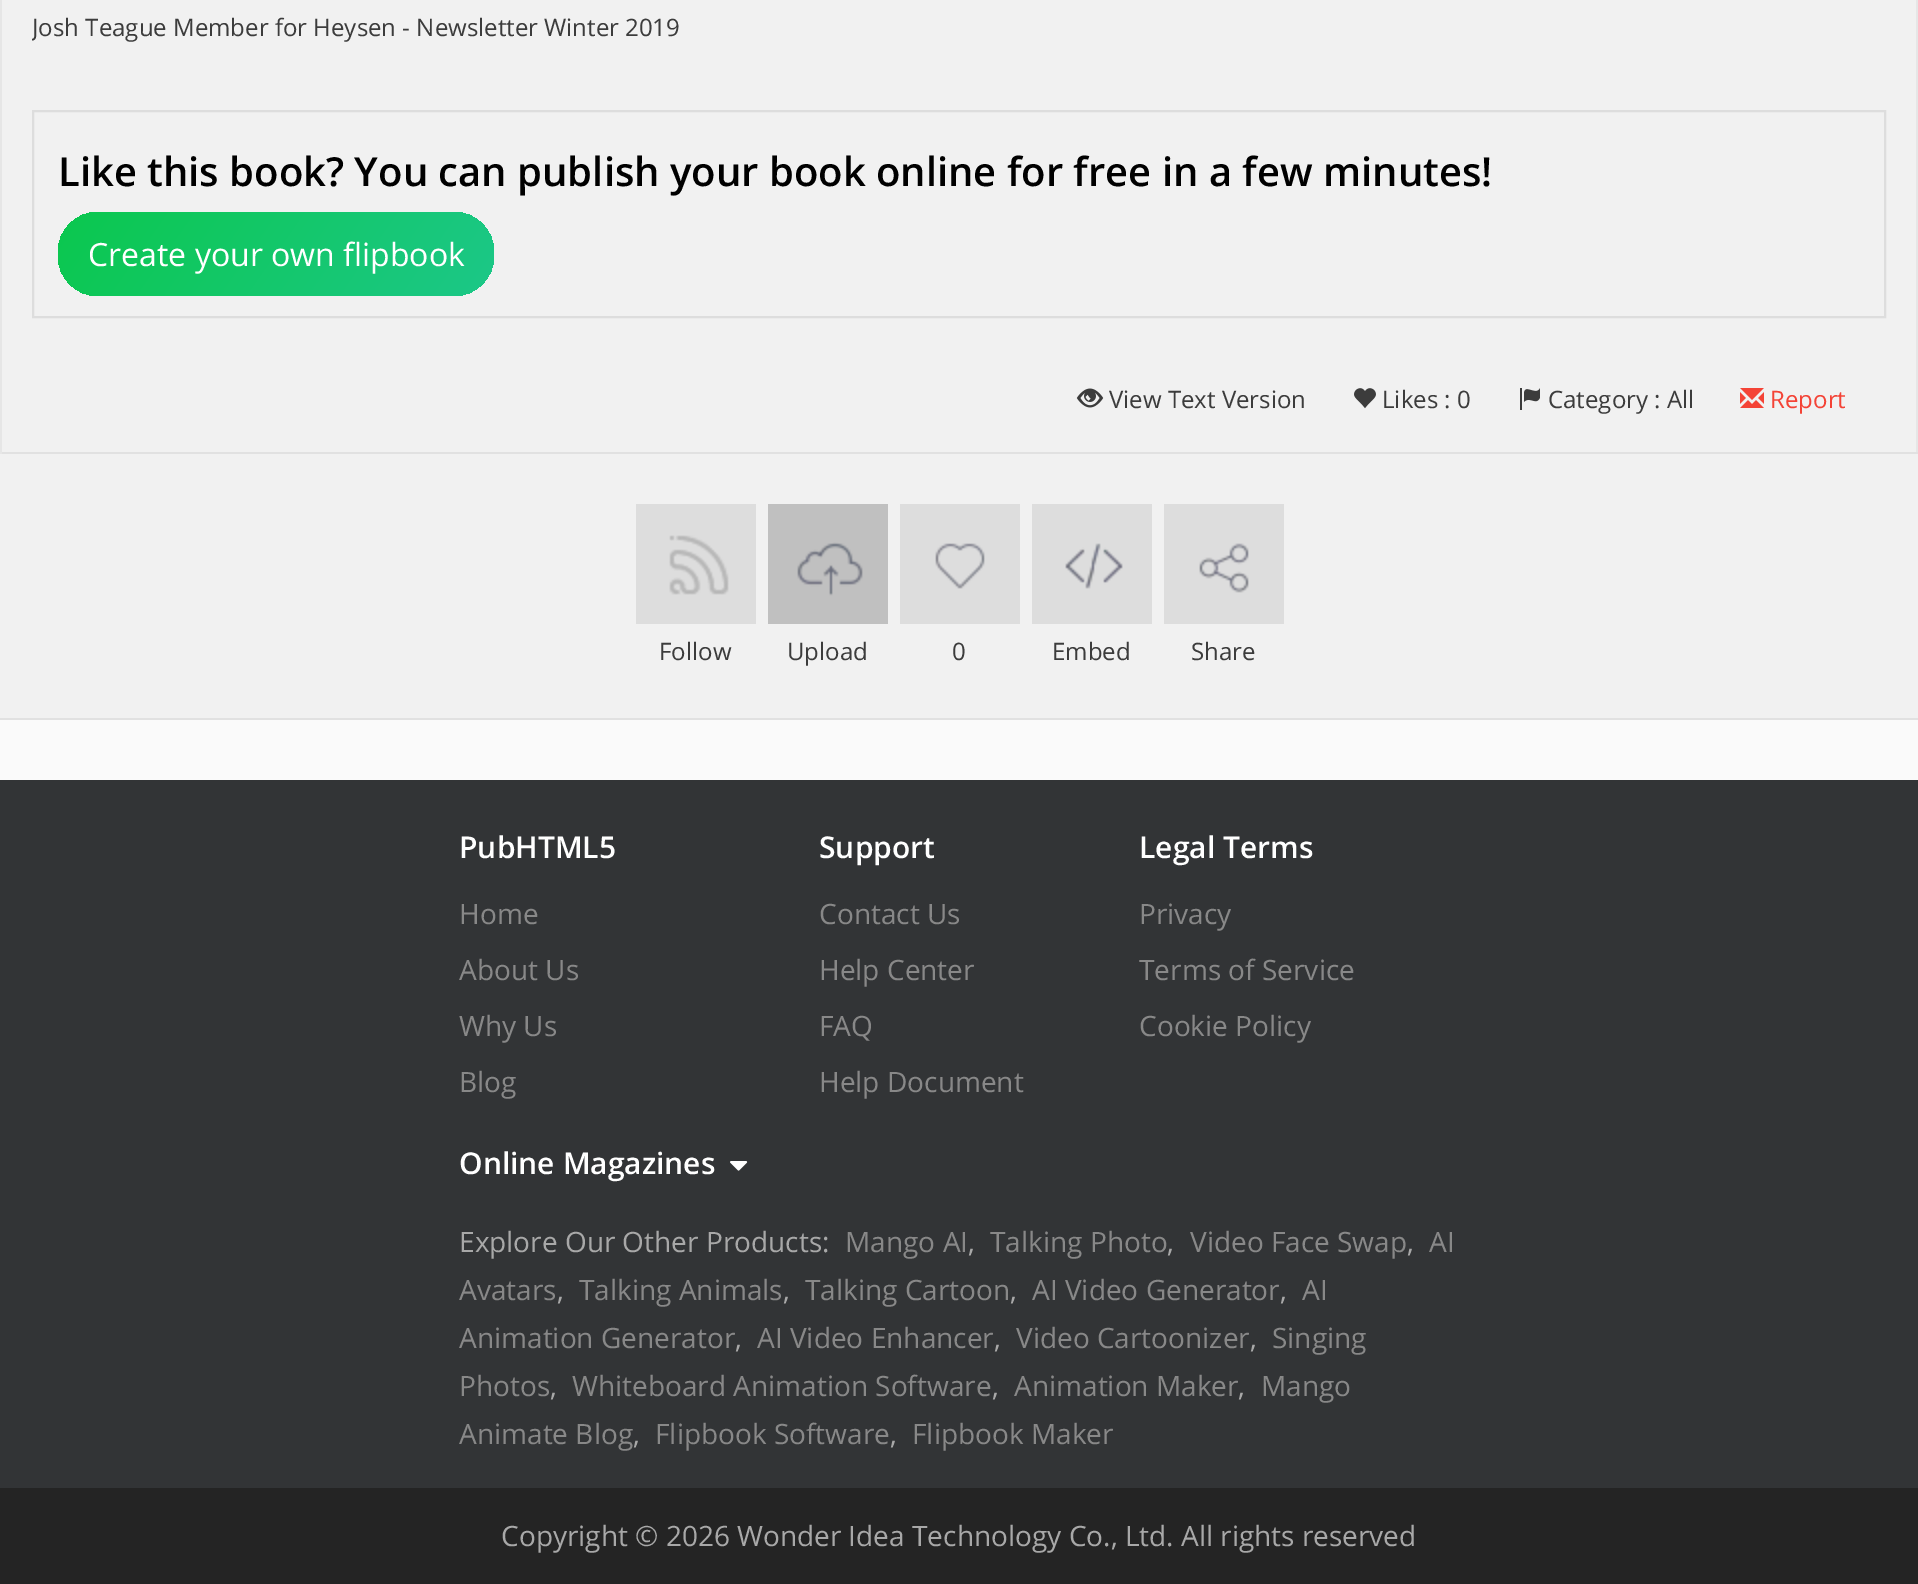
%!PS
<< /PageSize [1918 1584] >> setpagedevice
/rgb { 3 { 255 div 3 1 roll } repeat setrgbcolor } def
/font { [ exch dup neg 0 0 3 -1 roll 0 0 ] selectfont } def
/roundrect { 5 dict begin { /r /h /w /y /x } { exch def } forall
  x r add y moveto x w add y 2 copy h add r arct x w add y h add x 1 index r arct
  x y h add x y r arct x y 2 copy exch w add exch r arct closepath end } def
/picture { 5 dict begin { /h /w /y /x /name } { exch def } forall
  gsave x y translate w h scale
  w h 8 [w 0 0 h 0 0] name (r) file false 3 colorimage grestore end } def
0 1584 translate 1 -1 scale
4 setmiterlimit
250 250 250 rgb
0 0 1918 1584 rectfill
[
  [0 0 1918 718 241 241 241]
  [1916 0 2 454 230 230 230]
  [0 452 1918 2 225 225 225]
  [0 0 2 454 230 230 230]
] { aload pop rgb rectfill } forall
221 221 221 rgb
2 setlinewidth
33 111 1852 206 rectstroke
gsave 58 212 436 84 40 roundrect clip newpath
<< /ShadingType 2 /ColorSpace /DeviceRGB /Coords [110 138 442 370] /Extend [true true] /Function << /FunctionType 2 /Domain [0 1] /C0 [0.043 0.78 0.306] /C1 [0.11 0.784 0.533] /N 1 >> >> shfill grestore
(img/1.rgb) 1076 388 28 20 picture
(img/2.rgb) 1354 388 22 21 picture
(img/3.rgb) 1520 388 20 22 picture
(img/4.rgb) 1740 388 24 20 picture
225 225 225 rgb
0 718 1918 2 rectfill
221 221 221 rgb
636 504 120 120 rectfill
(img/5.rgb) 669 535 60 60 picture
192 192 192 rgb
768 504 120 120 rectfill
(img/6.rgb) 797 542 66 54 picture
221 221 221 rgb
900 504 120 120 rectfill
(img/7.rgb) 935 543 50 46 picture
1032 504 120 120 rectfill
(img/8.rgb) 1065 543 58 46 picture
1164 504 120 120 rectfill
(img/9.rgb) 1199 543 50 50 picture
50 52 54 rgb
0 780 1918 708 rectfill
(img/10.rgb) 730 1161 18 10 picture
36 36 36 rgb
0 1488 1918 96 rectfill
gsave
32 10 1854 36 rectclip
/OpenSans-Regular 24 font
60 60 60 rgb
32 36 moveto (Josh Teague Member for Heysen - Newsletter Winter 2019) show
grestore
/OpenSans-SemiBold 40 font
0 0 0 rgb
58 186 moveto (Like this book? You can publish your book online for free in a few minutes!) show
/OpenSans-Regular 32 font
255 255 255 rgb
88 266 moveto (Create your own flipbook) show
/OpenSans-Regular 24 font
60 60 60 rgb
[
  [(View Text Version) 1109 408]
  [(Likes : 0) 1382 408]
  [(Category : All) 1548 408]
] { aload pop moveto show } forall
244 67 54 rgb
1770 408 moveto (Report) show
60 60 60 rgb
[
  [(Follow) 659 660]
  [(Upload) 787 660]
  [(0) 952 660]
  [(Embed) 1052 660]
  [(Share) 1191 660]
] { aload pop moveto show } forall
/OpenSans-SemiBold 30 font
255 255 255 rgb
459 858 moveto (PubHTML5) show
/OpenSans-Regular 28 font
136 136 136 rgb
[
  [(Home) 459 924]
  [(About Us) 459 980]
  [(Why Us) 459 1036]
  [(Blog) 459 1092]
] { aload pop moveto show } forall
/OpenSans-SemiBold 30 font
255 255 255 rgb
819 858 moveto (Support) show
/OpenSans-Regular 28 font
136 136 136 rgb
[
  [(Contact Us) 819 924]
  [(Help Center) 819 980]
  [(FAQ) 819 1036]
  [(Help Document) 819 1092]
] { aload pop moveto show } forall
/OpenSans-SemiBold 30 font
255 255 255 rgb
1139 858 moveto (Legal Terms) show
/OpenSans-Regular 28 font
136 136 136 rgb
[
  [(Privacy) 1139 924]
  [(Terms of Service) 1139 980]
  [(Cookie Policy) 1139 1036]
] { aload pop moveto show } forall
/OpenSans-SemiBold 30 font
255 255 255 rgb
459 1174 moveto (Online Magazines) show
/OpenSans-Regular 28 font
168 168 168 rgb
459 1252 moveto (Explore Our Other Products:) show
136 136 136 rgb
845 1252 moveto (Mango AI) show
168 168 168 rgb
968 1252 moveto (,) show
136 136 136 rgb
990 1252 moveto (Talking Photo) show
168 168 168 rgb
1167 1252 moveto (,) show
136 136 136 rgb
1190 1252 moveto (Video Face Swap) show
168 168 168 rgb
1407 1252 moveto (,) show
136 136 136 rgb
1429 1252 moveto (AI) show
459 1300 moveto (Avatars) show
168 168 168 rgb
557 1300 moveto (,) show
136 136 136 rgb
579 1300 moveto (Talking Animals) show
168 168 168 rgb
783 1300 moveto (,) show
136 136 136 rgb
805 1300 moveto (Talking Cartoon) show
168 168 168 rgb
1010 1300 moveto (,) show
136 136 136 rgb
1032 1300 moveto (AI Video Generator) show
168 168 168 rgb
1280 1300 moveto (,) show
136 136 136 rgb
1302 1300 moveto (AI) show
459 1348 moveto (Animation Generator) show
168 168 168 rgb
735 1348 moveto (,) show
136 136 136 rgb
757 1348 moveto (AI Video Enhancer) show
168 168 168 rgb
994 1348 moveto (,) show
136 136 136 rgb
1016 1348 moveto (Video Cartoonizer) show
168 168 168 rgb
1250 1348 moveto (,) show
136 136 136 rgb
1272 1348 moveto (Singing) show
459 1396 moveto (Photos) show
168 168 168 rgb
550 1396 moveto (,) show
136 136 136 rgb
572 1396 moveto (Whiteboard Animation Software) show
168 168 168 rgb
992 1396 moveto (,) show
136 136 136 rgb
1014 1396 moveto (Animation Maker) show
168 168 168 rgb
1238 1396 moveto (,) show
136 136 136 rgb
1261 1396 moveto (Mango) show
459 1444 moveto (Animate Blog) show
168 168 168 rgb
633 1444 moveto (,) show
136 136 136 rgb
655 1444 moveto (Flipbook Software) show
168 168 168 rgb
890 1444 moveto (,) show
136 136 136 rgb
912 1444 moveto (Flipbook Maker) show
168 168 168 rgb
501 1546 moveto (Copyright © 2026 Wonder Idea Technology Co., Ltd. All rights reserved) show
showpage
